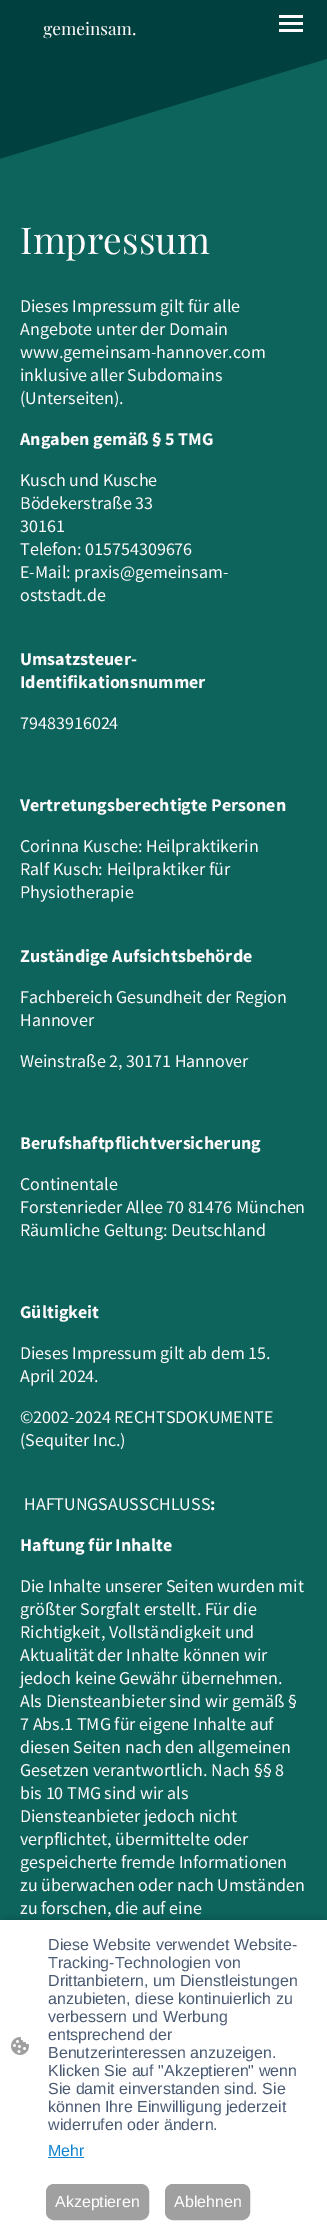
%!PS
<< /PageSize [327 2228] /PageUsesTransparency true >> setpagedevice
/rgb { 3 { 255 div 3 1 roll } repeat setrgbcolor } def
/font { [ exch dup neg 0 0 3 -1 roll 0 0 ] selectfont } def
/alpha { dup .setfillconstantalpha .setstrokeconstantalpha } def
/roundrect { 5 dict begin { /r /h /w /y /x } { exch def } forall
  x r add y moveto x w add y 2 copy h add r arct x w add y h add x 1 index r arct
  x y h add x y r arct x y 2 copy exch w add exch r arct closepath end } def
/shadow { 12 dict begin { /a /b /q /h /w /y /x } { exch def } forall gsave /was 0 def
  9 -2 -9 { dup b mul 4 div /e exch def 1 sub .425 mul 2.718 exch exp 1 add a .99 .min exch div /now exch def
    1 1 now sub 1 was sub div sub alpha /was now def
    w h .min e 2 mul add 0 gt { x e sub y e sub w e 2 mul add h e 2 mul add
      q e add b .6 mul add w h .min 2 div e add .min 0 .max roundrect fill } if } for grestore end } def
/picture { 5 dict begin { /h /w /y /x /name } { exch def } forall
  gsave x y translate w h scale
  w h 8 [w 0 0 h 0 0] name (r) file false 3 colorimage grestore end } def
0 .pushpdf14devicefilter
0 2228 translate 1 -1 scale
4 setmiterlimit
0 64 62 rgb
0 0 327 2228 rectfill
(img/1.rgb) 43 21 93 18 picture
[
  [279 15 24 3 254 249 250]
  [279 22 24 3 254 249 250]
  [279 29 24 3 254 249 250]
] { aload pop rgb rectfill } forall
12 100 92 rgb
0 159 moveto 0 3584 lineto 327 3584 lineto 327 59 lineto closepath fill
0 0 0 rgb
6 1923 315 296 0 4 0.63 shadow
255 255 255 rgb
0 1920 327 308 rectfill
(img/2.rgb) 11 2037 18 18 picture
17 131 209 rgb
48 2157 36 1 rectfill
160 160 160 rgb
46.5 2184.5 102 35 7.5 roundrect gsave fill grestore
stroke
165.5 2184.5 84 35 7.5 roundrect gsave fill grestore
stroke
/PlayfairDisplay-Regular 37 font
254 249 250 rgb
20 254 moveto (Impressum) show
/SourceSansPro-Regular 18 font
[
  [(Dieses Impressum gilt für alle) 20 312]
  [(Angebote unter der Domain) 20 335]
  [(www.gemeinsam-hannover.com) 20 358]
  [(inklusive aller Subdomains) 20 381]
  [(\(Unterseiten\).) 20 404]
] { aload pop moveto show } forall
/SourceSansPro-Bold 18 font
20 445 moveto (Angaben gemäß § 5 TMG) show
/SourceSansPro-Regular 18 font
[
  [(Kusch und Kusche) 20 486]
  [(Bödekerstraße 33) 20 509]
  [(30161) 20 532]
  [(Telefon: 015754309676) 20 555]
  [(E-Mail: praxis@gemeinsam-) 20 578]
  [(oststadt.de) 20 601]
] { aload pop moveto show } forall
/SourceSansPro-Bold 18 font
20 665 moveto (Umsatzsteuer-) show
20 688 moveto (Identifikationsnummer) show
/SourceSansPro-Regular 18 font
20 729 moveto (79483916024) show
/SourceSansPro-Bold 18 font
20 811 moveto (Vertretungsberechtigte Personen) show
/SourceSansPro-Regular 18 font
[
  [(Corinna Kusche: Heilpraktikerin) 20 852]
  [(Ralf Kusch: Heilpraktiker für) 20 875]
  [(Physiotherapie) 20 898]
] { aload pop moveto show } forall
/SourceSansPro-Bold 18 font
20 962 moveto (Zuständige Aufsichtsbehörde) show
/SourceSansPro-Regular 18 font
[
  [(Fachbereich Gesundheit der Region) 20 1003]
  [(Hannover) 20 1026]
  [(Weinstraße 2, 30171 Hannover) 20 1067]
] { aload pop moveto show } forall
/SourceSansPro-Bold 18 font
20 1149 moveto (Berufshaftpflichtversicherung) show
/SourceSansPro-Regular 18 font
[
  [(Continentale) 20 1190]
  [(Forstenrieder Allee 70 81476 München) 20 1213]
  [(Räumliche Geltung: Deutschland) 20 1236]
] { aload pop moveto show } forall
/SourceSansPro-Bold 18 font
20 1318 moveto (Gültigkeit) show
/SourceSansPro-Regular 18 font
[
  [(Dieses Impressum gilt ab dem 15.) 20 1359]
  [(April 2024.) 20 1382]
  [(©2002-2024 RECHTSDOKUMENTE) 20 1423]
  [(\(Sequiter Inc.\)) 20 1446]
  [(HAFTUNGSAUSSCHLUSS) 24 1510]
] { aload pop moveto show } forall
/SourceSansPro-Bold 18 font
210 1510 moveto (:) show
20 1551 moveto (Haftung für Inhalte) show
/SourceSansPro-Regular 18 font
[
  [(Die Inhalte unserer Seiten wurden mit) 20 1592]
  [(größter Sorgfalt erstellt. Für die) 20 1615]
  [(Richtigkeit, Vollständigkeit und) 20 1638]
  [(Aktualität der Inhalte können wir) 20 1661]
  [(jedoch keine Gewähr übernehmen.) 20 1684]
  [(Als Diensteanbieter sind wir gemäß §) 20 1707]
  [(7 Abs.1 TMG für eigene Inhalte auf) 20 1730]
  [(diesen Seiten nach den allgemeinen) 20 1753]
  [(Gesetzen verantwortlich. Nach §§ 8) 20 1776]
  [(bis 10 TMG sind wir als) 20 1799]
  [(Diensteanbieter jedoch nicht) 20 1822]
  [(verpflichtet, übermittelte oder) 20 1845]
  [(gespeicherte fremde Informationen) 20 1868]
  [(zu überwachen oder nach Umständen) 20 1891]
  [(zu forschen, die auf eine) 20 1914]
] { aload pop moveto show } forall
/LiberationSans-Regular 16 font
74 90 115 rgb
[
  [(Diese Website verwendet Website-) 48 1950]
  [(Tracking-Technologien von) 48 1968]
  [(Drittanbietern, um Dienstleistungen) 48 1986]
  [(anzubieten, diese kontinuierlich zu) 48 2004]
  [(verbessern und Werbung) 48 2022]
  [(entsprechend der) 48 2040]
  [(Benutzerinteressen anzuzeigen.) 48 2058]
  [(Klicken Sie auf "Akzeptieren" wenn) 48 2076]
  [(Sie damit einverstanden sind. Sie) 48 2094]
  [(können Ihre Einwilligung jederzeit) 48 2112]
  [(widerrufen oder ändern.) 48 2130]
] { aload pop moveto show } forall
17 131 209 rgb
48 2156 moveto (Mehr) show
255 255 255 rgb
55 2207 moveto (Akzeptieren) show
174 2207 moveto (Ablehnen) show
.poppdf14devicefilter showpage
